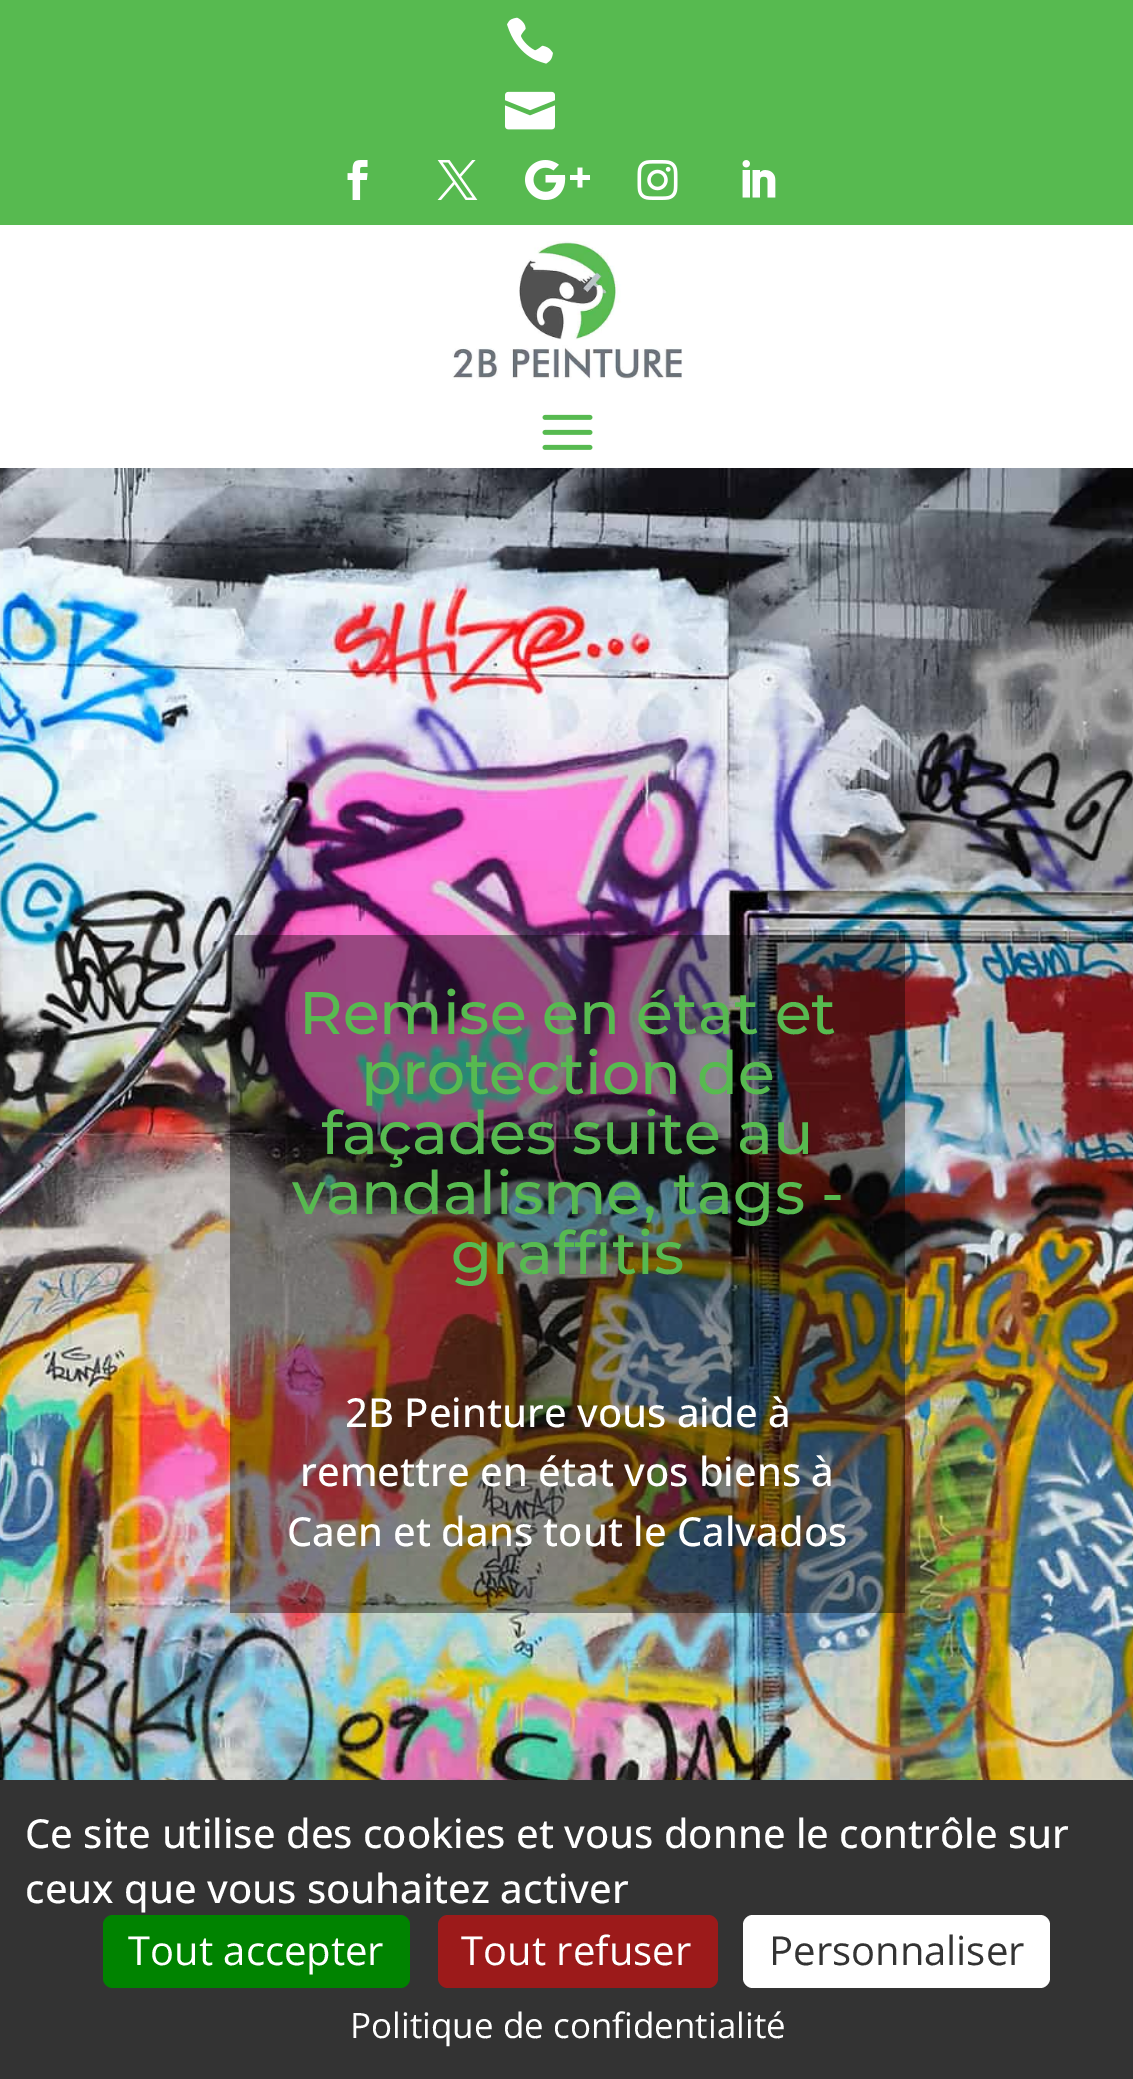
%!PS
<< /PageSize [1133 2079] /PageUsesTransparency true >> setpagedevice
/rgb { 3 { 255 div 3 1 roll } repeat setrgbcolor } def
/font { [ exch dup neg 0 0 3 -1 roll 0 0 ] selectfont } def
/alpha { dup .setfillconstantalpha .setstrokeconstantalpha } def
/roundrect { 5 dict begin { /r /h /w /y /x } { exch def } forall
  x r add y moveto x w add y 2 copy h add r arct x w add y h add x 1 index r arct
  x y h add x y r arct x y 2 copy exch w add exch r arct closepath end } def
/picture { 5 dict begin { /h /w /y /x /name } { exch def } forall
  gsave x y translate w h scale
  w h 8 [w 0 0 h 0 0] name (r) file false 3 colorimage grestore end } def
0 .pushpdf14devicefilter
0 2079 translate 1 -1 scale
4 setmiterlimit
255 255 255 rgb
0 0 1133 2079 rectfill
87 186 80 rgb
0 0 1133 225 rectfill
(img/1.rgb) 507 17 46 47 picture
(img/2.rgb) 505 91 50 39 picture
(img/3.rgb) 347 160 21 40 picture
(img/4.rgb) 437 160 41 40 picture
(img/5.rgb) 525 160 65 40 picture
(img/6.rgb) 637 160 41 40 picture
(img/7.rgb) 742 160 34 38 picture
(img/8.rgb) 452 241 230 139 picture
(img/9.rgb) 542 414 51 36 picture
(img/10.rgb) 0 468 1133 1312 picture
0.4 alpha
[
  [230 935 675 400 0 0 0]
  [230 1335 675 278 0 0 0]
] { aload pop rgb rectfill } forall
1 alpha
[
  [0 1780 1133 299 51 51 51]
] { aload pop rgb rectfill } forall
0 131 0 rgb
103 1915 307 73 10 roundrect fill
156 26 26 rgb
438 1915 280 73 10 roundrect fill
255 255 255 rgb
743 1915 307 73 10 roundrect fill
/Montserrat-Thin 60 font
87 186 80 rgb
[
  [(Remise en état et) 299 1034]
  [(protection de) 361 1094]
  [(façades suite au) 321 1154]
  [(vandalisme, tags -) 292 1214]
  [(graffitis) 451 1274]
] { aload pop moveto show } forall
/OpenSans-Medium 40 font
255 255 255 rgb
[
  [(2B Peinture vous aide à) 345 1427]
  [(remettre en état vos biens à) 300 1486]
  [(Caen et dans tout le Calvados) 287 1546]
  [(Ce site utilise des cookies et vous donne le contrôle sur) 25 1848]
  [(ceux que vous souhaitez activer) 25 1903]
] { aload pop moveto show } forall
/OpenSans-Regular 40 font
128 1965 moveto (Tout accepter) show
461 1965 moveto (Tout refuser) show
51 51 51 rgb
769 1965 moveto (Personnaliser) show
/OpenSans-Regular 35 font
255 255 255 rgb
350 2038 moveto (Politique de confidentialité) show
.poppdf14devicefilter showpage
